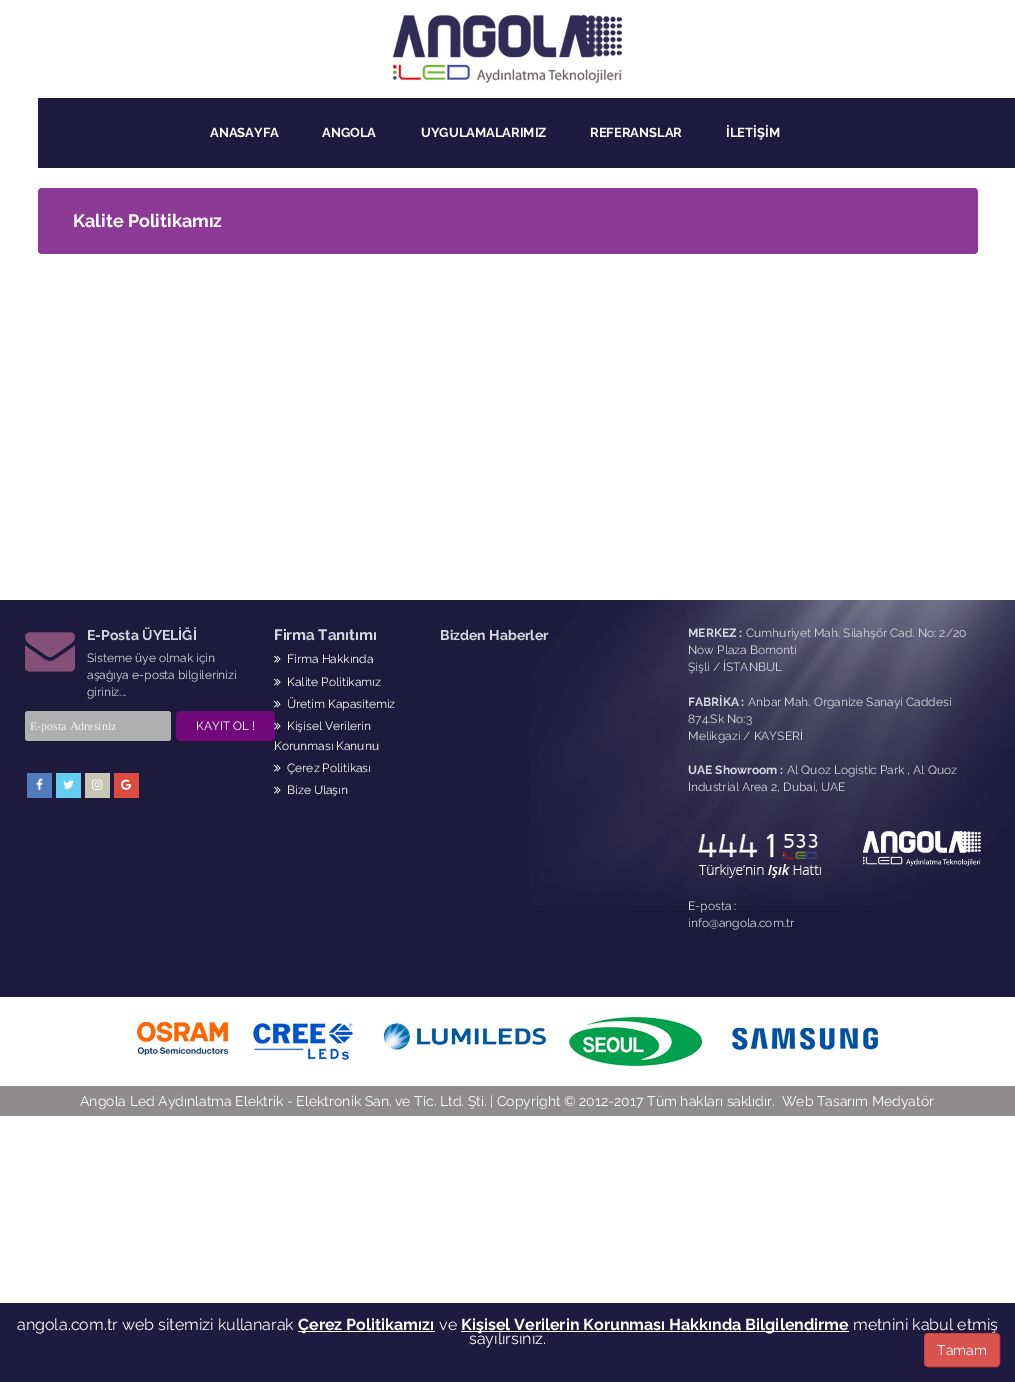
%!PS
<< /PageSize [1015 1382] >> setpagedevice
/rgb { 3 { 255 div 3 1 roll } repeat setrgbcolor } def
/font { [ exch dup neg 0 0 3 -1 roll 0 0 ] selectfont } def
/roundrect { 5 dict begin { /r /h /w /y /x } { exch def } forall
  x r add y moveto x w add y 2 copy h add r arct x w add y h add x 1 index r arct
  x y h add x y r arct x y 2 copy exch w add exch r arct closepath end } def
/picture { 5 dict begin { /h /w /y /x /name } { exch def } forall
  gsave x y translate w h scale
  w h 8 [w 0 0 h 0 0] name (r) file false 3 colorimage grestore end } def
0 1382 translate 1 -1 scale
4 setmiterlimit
255 255 255 rgb
0 0 1015 1382 rectfill
(img/1.rgb) 393 15 229 68 picture
31 27 64 rgb
38 98 977 70 rectfill
141 58 151 rgb
38 188 940 66 4 roundrect fill
29 26 61 rgb
0 600 1015 397 rectfill
(img/2.rgb) 529 600 486 305 picture
(img/3.rgb) 25 632 50 40 picture
175 175 175 rgb
25 711 146 30 3 roundrect fill
113 9 125 rgb
176 711 99 30 5 roundrect fill
80 124 190 rgb
27 773 25 25 rectfill
(img/4.rgb) 36 778 7 12 picture
99 205 241 rgb
56 773 25 25 rectfill
(img/5.rgb) 63 780 11 9 picture
199 197 179 rgb
85 773 25 25 rectfill
(img/6.rgb) 92 779 11 11 picture
219 75 64 rgb
114 773 25 25 rectfill
(img/7.rgb) 121 779 11 11 picture
(img/8.rgb) 274 655 7 8 picture
(img/8.rgb) 274 678 7 8 picture
(img/8.rgb) 274 700 7 8 picture
(img/9.rgb) 274 722 7 8 picture
(img/8.rgb) 274 764 7 8 picture
(img/8.rgb) 274 786 7 8 picture
(img/10.rgb) 863 831 118 35 picture
(img/11.rgb) 698 834 123 44 picture
(img/12.rgb) 137 1017 741 49 picture
[
  [0 1086 1015 30 142 140 140]
  [0 1303 1015 79 31 27 64]
  [298 1331 137 1 255 255 255]
  [461 1331 388 1 255 255 255]
] { aload pop rgb rectfill } forall
217 83 79 rgb
924.5 1333.5 75 33 3.5 roundrect gsave fill grestore
212 63 58 rgb
stroke
/Raleway-Bold 13 font
255 255 255 rgb
[
  [(ANASAYFA) 210 137]
  [(ANGOLA) 322 137]
  [(UYGULAMALARIMIZ) 421 137]
  [(REFERANSLAR) 590 137]
  [(İLETİŞİM) 726 137]
] { aload pop moveto show } forall
/Raleway-Bold 18 font
73 227 moveto (Kalite Politikamız) show
/Raleway-Bold 14 font
213 215 221 rgb
87 640 moveto (E-Posta ÜYELİĞİ) show
/Raleway-Regular 12 font
[
  [(Sisteme üye olmak için) 87 662]
  [(aşağıya e-posta bilgilerinizi) 87 679]
  [(giriniz...) 87 696]
] { aload pop moveto show } forall
/LiberationSerif-Regular 12 font
243 243 243 rgb
30 730 moveto (E-posta Adresiniz) show
/Raleway-Regular 12 font
255 255 255 rgb
196 730 moveto (KAYIT OL !) show
/Raleway-Bold 15 font
213 215 221 rgb
274 640 moveto (Firma Tanıtımı) show
/Raleway-Regular 12 font
255 255 255 rgb
[
  [(Firma Hakkında) 287 663]
  [(Kalite Politikamız) 287 686]
  [(Üretim Kapasitemiz) 287 708]
  [(Kişisel Verilerin) 287 730]
  [(Korunması Kanunu) 274 750]
  [(Çerez Politikası) 287 772]
  [(Bize Ulaşın) 287 794]
] { aload pop moveto show } forall
/Raleway-Bold 14 font
213 215 221 rgb
440 640 moveto (Bizden Haberler) show
/Raleway-Bold 12 font
688 637 moveto (MERKEZ :) show
/Raleway-Regular 12 font
[
  [(Cumhuriyet Mah. Silahşör Cad. No: 2/20) 746 637]
  [(Now Plaza Bomonti) 688 654]
  [(Şişli / İSTANBUL) 688 671]
] { aload pop moveto show } forall
/Raleway-Bold 12 font
688 706 moveto (FABRİKA :) show
/Raleway-Regular 12 font
[
  [(Anbar Mah. Organize Sanayi Caddesi) 748 706]
  [(874.Sk No:3) 688 723]
  [(Melikgazi / KAYSERİ) 688 740]
] { aload pop moveto show } forall
/Raleway-Bold 12 font
688 774 moveto (UAE Showroom :) show
/Raleway-Regular 12 font
[
  [(Al Quoz Logistic Park , Al Quoz) 787 774]
  [(Industrial Area 2, Dubai, UAE) 688 791]
  [(E-posta :) 688 910]
  [(info@angola.com.tr) 688 927]
] { aload pop moveto show } forall
/Raleway-Regular 14 font
255 255 255 rgb
80 1106 moveto (Angola Led Aydınlatma Elektrik - Elektronik San. ve Tic. Ltd. Şti. | Copyright © 2012-2017 Tüm hakları saklıdır.  Web Tasarım Medyatör) show
/Raleway-Regular 16 font
17 1330 moveto (angola.com.tr web sitemizi kullanarak) show
/Raleway-Bold 16 font
298 1330 moveto (Çerez Politikamızı) show
/Raleway-Regular 16 font
439 1330 moveto (ve) show
/Raleway-Bold 16 font
461 1330 moveto (Kişisel Verilerin Korunması Hakkında Bilgilendirme) show
/Raleway-Regular 16 font
853 1330 moveto (metnini kabul etmiş) show
469 1344 moveto (sayılırsınız.) show
/Raleway-Regular 14 font
937 1355 moveto (Tamam) show
showpage
